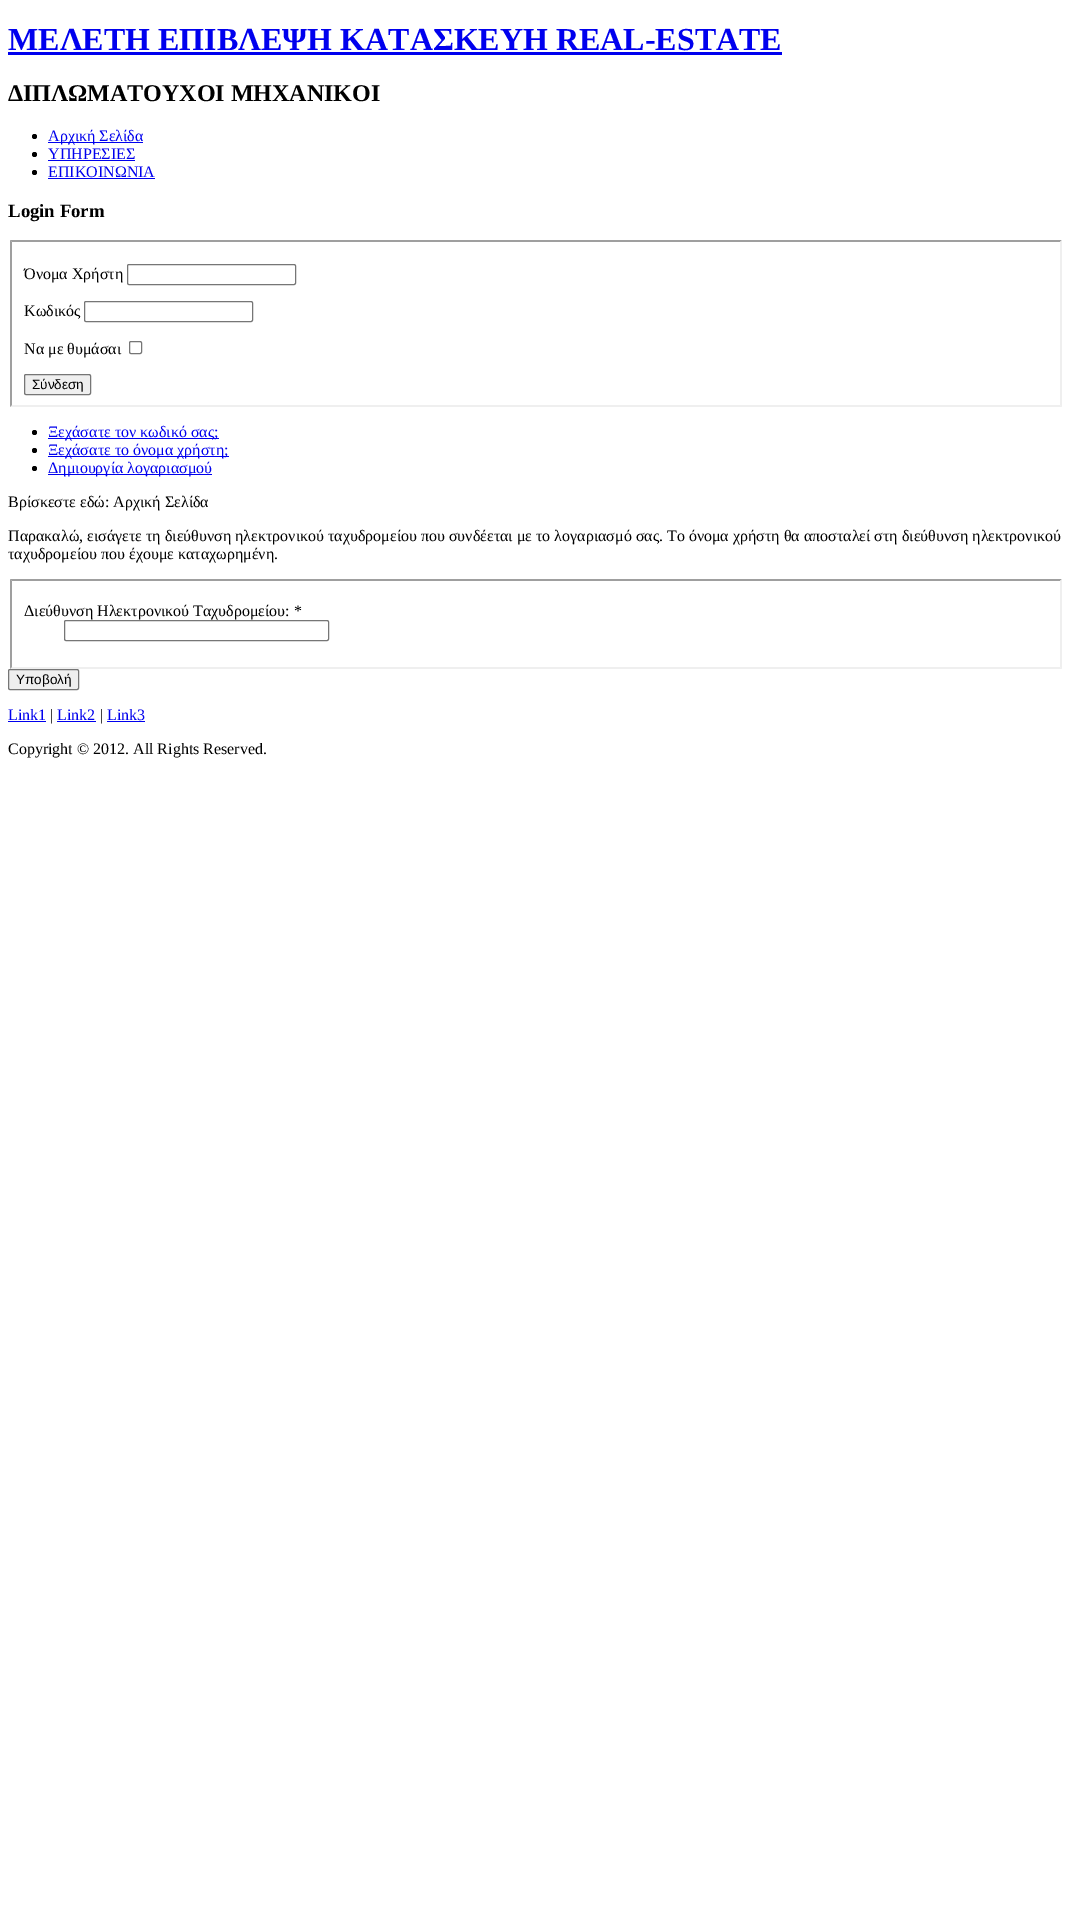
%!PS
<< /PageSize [1072 1926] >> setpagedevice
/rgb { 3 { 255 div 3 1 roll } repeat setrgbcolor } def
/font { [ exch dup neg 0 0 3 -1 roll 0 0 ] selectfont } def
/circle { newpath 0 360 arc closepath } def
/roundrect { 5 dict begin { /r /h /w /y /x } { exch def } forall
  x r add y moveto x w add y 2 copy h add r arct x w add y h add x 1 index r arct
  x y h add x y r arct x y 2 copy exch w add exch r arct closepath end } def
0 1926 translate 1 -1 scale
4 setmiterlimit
255 255 255 rgb
0 0 1072 1926 rectfill
0 0 238 rgb
8 52 774 3 rectfill
0 0 0 rgb
34.5 136.5 2.5 circle fill
0 0 238 rgb
48 142 95 1 rectfill
0 0 0 rgb
34.5 154.5 2.5 circle fill
0 0 238 rgb
48 160 87 1 rectfill
0 0 0 rgb
34.5 172.5 2.5 circle fill
0 0 238 rgb
48 178 107 1 rectfill
159 159 159 rgb
10 240 moveto 1062 240 lineto 1060 242 lineto 12 242 lineto closepath fill
239 239 239 rgb
1062 240 moveto 1062 407 lineto 1060 405 lineto 1060 242 lineto closepath fill
1062 407 moveto 10 407 lineto 12 405 lineto 1060 405 lineto closepath fill
159 159 159 rgb
10 407 moveto 10 240 lineto 12 242 lineto 12 405 lineto closepath fill
118 118 118 rgb
127.5 264.5 168 20 1.5 roundrect stroke
84.5 301.5 168 20 1.5 roundrect stroke
129.5 341.5 12 12 1.5 roundrect stroke
239 239 239 rgb
24.5 374.5 66 20 1.5 roundrect gsave fill grestore
118 118 118 rgb
stroke
0 0 0 rgb
34.5 432.5 2.5 circle fill
0 0 238 rgb
48 438 171 1 rectfill
0 0 0 rgb
34.5 450.5 2.5 circle fill
0 0 238 rgb
48 456 181 1 rectfill
0 0 0 rgb
34.5 468.5 2.5 circle fill
0 0 238 rgb
48 474 164 1 rectfill
159 159 159 rgb
10 579 moveto 1062 579 lineto 1060 581 lineto 12 581 lineto closepath fill
239 239 239 rgb
1062 579 moveto 1062 669 lineto 1060 667 lineto 1060 581 lineto closepath fill
1062 669 moveto 10 669 lineto 12 667 lineto 1060 667 lineto closepath fill
159 159 159 rgb
10 669 moveto 10 579 lineto 12 581 lineto 12 667 lineto closepath fill
118 118 118 rgb
64.5 620.5 264 20 1.5 roundrect stroke
239 239 239 rgb
8.5 669.5 70 20 1.5 roundrect gsave fill grestore
118 118 118 rgb
stroke
[
  [8 721 38 1 0 0 238]
  [57 721 39 1 0 0 238]
  [107 721 38 1 0 0 238]
] { aload pop rgb rectfill } forall
/LiberationSerif-Bold 32 font
8 50 moveto (ΜΕΛΕΤΗ ΕΠΙΒΛΕΨΗ ΚΑΤΑΣΚΕΥΗ REAL-ESTATE) show
/LiberationSerif-Bold 24 font
0 0 0 rgb
8 101 moveto (ΔΙΠΛΩΜΑΤΟΥΧΟΙ ΜΗΧΑΝΙΚΟΙ) show
/LiberationSerif-Regular 16 font
0 0 238 rgb
[
  [(Αρχική Σελίδα) 48 141]
  [(ΥΠΗΡΕΣΙΕΣ) 48 159]
  [(ΕΠΙΚΟΙΝΩΝΙΑ) 48 177]
] { aload pop moveto show } forall
/LiberationSerif-Bold 18.75 font
0 0 0 rgb
8 217 moveto (Login Form) show
/LiberationSerif-Regular 16 font
[
  [(Όνομα Χρήστη) 24 279]
  [(Κωδικός) 24 316]
  [(Να με θυμάσαι) 24 354]
] { aload pop moveto show } forall
/LiberationSans-Regular 13.5 font
32 389 moveto (Σύνδεση) show
/LiberationSerif-Regular 16 font
0 0 238 rgb
[
  [(Ξεχάσατε τον κωδικό σας;) 48 437]
  [(Ξεχάσατε το όνομα χρήστη;) 48 455]
  [(Δημιουργία λογαριασμού) 48 473]
] { aload pop moveto show } forall
0 0 0 rgb
[
  [(Βρίσκεστε εδώ: Αρχική Σελίδα) 8 507]
  [(Παρακαλώ, εισάγετε τη διεύθυνση ηλεκτρονικού ταχυδρομείου που συνδέεται με το λογαριασμό σας. Το όνομα χρήστη θα αποσταλεί στη διεύθυνση ηλεκτρονικού) 8 541]
  [(ταχυδρομείου που έχουμε καταχωρημένη.) 8 559]
  [(Διεύθυνση Ηλεκτρονικού Ταχυδρομείου: *) 24 616]
] { aload pop moveto show } forall
/LiberationSans-Regular 13.5 font
16 684 moveto (Υποβολή) show
/LiberationSerif-Regular 16 font
0 0 238 rgb
8 720 moveto (Link1) show
0 0 0 rgb
50 720 moveto (|) show
0 0 238 rgb
57 720 moveto (Link2) show
0 0 0 rgb
100 720 moveto (|) show
0 0 238 rgb
107 720 moveto (Link3) show
0 0 0 rgb
8 754 moveto (Copyright © 2012. All Rights Reserved.) show
showpage
